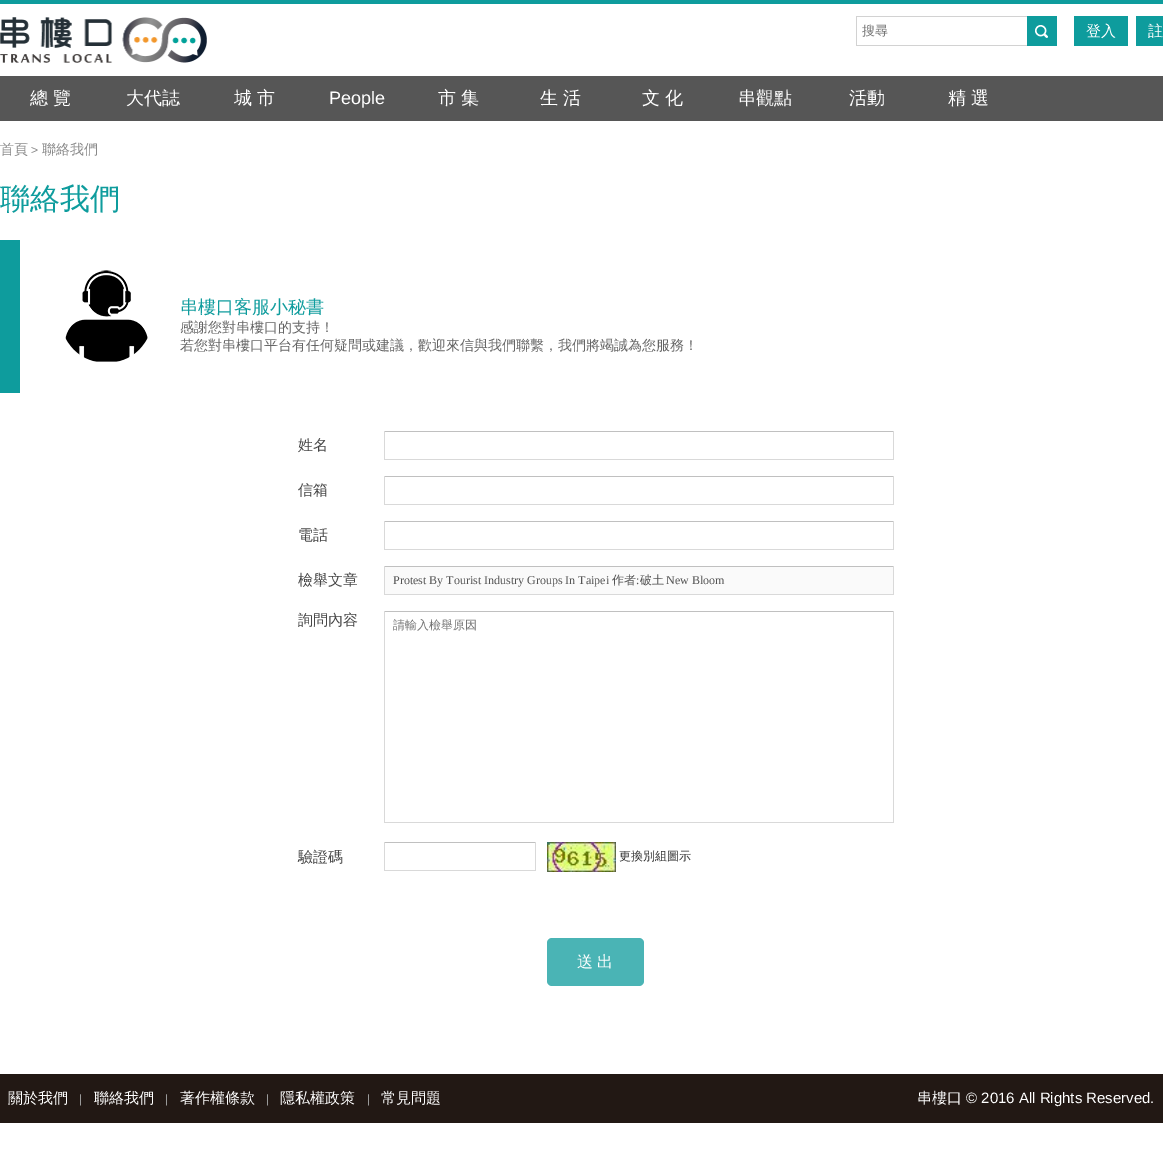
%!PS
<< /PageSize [1163 1157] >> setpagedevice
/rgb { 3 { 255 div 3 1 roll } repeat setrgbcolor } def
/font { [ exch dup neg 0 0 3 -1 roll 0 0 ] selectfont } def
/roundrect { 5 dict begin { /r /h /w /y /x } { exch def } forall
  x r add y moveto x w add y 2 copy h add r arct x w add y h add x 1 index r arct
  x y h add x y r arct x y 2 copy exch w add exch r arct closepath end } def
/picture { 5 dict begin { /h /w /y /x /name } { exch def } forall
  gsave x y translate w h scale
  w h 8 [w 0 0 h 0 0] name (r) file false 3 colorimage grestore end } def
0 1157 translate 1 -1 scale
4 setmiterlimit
255 255 255 rgb
0 0 1163 1157 rectfill
14 156 157 rgb
0 0 1163 4 rectfill
(img/1.rgb) 0 17 207 46 picture
[
  [856 16 171 1 210 210 210]
  [856 45 171 1 210 210 210]
  [856 16 1 30 210 210 210]
  [1027 16 30 30 14 156 157]
] { aload pop rgb rectfill } forall
(img/2.rgb) 1035 25 13 13 picture
[
  [1074 16 54 30 14 156 157]
  [1136 16 27 30 14 156 157]
  [0 76 1163 45 86 86 86]
  [0 240 20 153 14 156 157]
] { aload pop rgb rectfill } forall
(img/3.rgb) 65 270 83 92 picture
[
  [384 431 510 1 192 192 192]
  [893 431 1 29 217 217 217]
  [384 459 510 1 217 217 217]
  [384 431 1 29 217 217 217]
  [384 476 510 1 192 192 192]
  [893 476 1 29 217 217 217]
  [384 504 510 1 217 217 217]
  [384 476 1 29 217 217 217]
  [384 521 510 1 192 192 192]
  [893 521 1 29 217 217 217]
  [384 549 510 1 217 217 217]
  [384 521 1 29 217 217 217]
  [385 567 508 27 250 250 250]
  [384 566 510 1 192 192 192]
  [893 566 1 29 217 217 217]
  [384 594 510 1 217 217 217]
  [384 566 1 29 217 217 217]
  [384 611 510 1 192 192 192]
  [893 611 1 212 217 217 217]
  [384 822 510 1 217 217 217]
  [384 611 1 212 217 217 217]
  [384 842 152 1 192 192 192]
  [535 842 1 29 217 217 217]
  [384 870 152 1 217 217 217]
  [384 842 1 29 217 217 217]
] { aload pop rgb rectfill } forall
(img/4.rgb) 547 842 69 30 picture
74 180 181 rgb
547 938 97 48 5 roundrect fill
34 24 20 rgb
0 1074 1163 49 rectfill
/WenQuanYiZenHei-Medium 13 font
117 117 117 rgb
862 35 moveto (搜尋) show
/WenQuanYiZenHei-Medium 15 font
255 255 255 rgb
1086 36 moveto (登入) show
1148 36 moveto (註) show
/WenQuanYiZenHei-Medium 18 font
[
  [(總 覽) 30 104]
  [(大代誌) 126 104]
  [(城 市) 234 104]
] { aload pop moveto show } forall
/LiberationSans-Regular 18 font
329 104 moveto (People) show
/WenQuanYiZenHei-Medium 18 font
[
  [(市 集) 438 104]
  [(生 活) 540 104]
  [(文 化) 642 104]
  [(串觀點) 738 104]
  [(活動) 849 104]
  [(精 選) 948 104]
] { aload pop moveto show } forall
/WenQuanYiZenHei-Medium 14 font
137 137 137 rgb
0 154 moveto (首頁) show
/LiberationSans-Regular 12 font
31 154 moveto (>) show
/WenQuanYiZenHei-Medium 14 font
42 154 moveto (聯絡我們) show
/WenQuanYiZenHei-Medium 30 font
14 156 157 rgb
0 209 moveto (聯絡我們) show
/WenQuanYiZenHei-Medium 18 font
180 313 moveto (串樓口客服小秘書) show
/WenQuanYiZenHei-Medium 14 font
102 102 102 rgb
180 332 moveto (感謝您對串樓口的支持！) show
180 350 moveto (若您對串樓口平台有任何疑問或建議，歡迎來信與我們聯繫，我們將竭誠為您服務！) show
/WenQuanYiZenHei-Medium 15 font
71 71 71 rgb
[
  [(姓名) 298 450]
  [(信箱) 298 495]
  [(電話) 298 540]
  [(檢舉文章) 298 585]
] { aload pop moveto show } forall
/LiberationSerif-Regular 12 font
84 84 84 rgb
393 584 moveto (Protest By Tourist Industry Groups In Taipei) show
/WenQuanYiZenHei-Medium 12 font
612 584 moveto (作者 破土) show
/LiberationSerif-Regular 12 font
666 584 moveto (New Bloom) show
636 584 moveto (:) show
/WenQuanYiZenHei-Medium 15 font
71 71 71 rgb
298 625 moveto (詢問內容) show
/WenQuanYiZenHei-Medium 12 font
117 117 117 rgb
393 629 moveto (請輸入檢舉原因) show
/WenQuanYiZenHei-Medium 15 font
71 71 71 rgb
298 862 moveto (驗證碼) show
/WenQuanYiZenHei-Medium 12 font
51 51 51 rgb
619 860 moveto (更換別組圖示) show
/WenQuanYiZenHei-Medium 16 font
255 255 255 rgb
577 967 moveto -1 0 32 (送 出) widthshow
/WenQuanYiZenHei-Medium 15 font
8 1103 moveto (關於我們) show
/LiberationSans-Regular 12 font
154 154 154 rgb
79 1103 moveto (|) show
/WenQuanYiZenHei-Medium 15 font
255 255 255 rgb
94 1103 moveto (聯絡我們) show
/LiberationSans-Regular 12 font
154 154 154 rgb
165 1103 moveto (|) show
/WenQuanYiZenHei-Medium 15 font
255 255 255 rgb
180 1103 moveto (著作權條款) show
/LiberationSans-Regular 12 font
154 154 154 rgb
266 1103 moveto (|) show
/WenQuanYiZenHei-Medium 15 font
255 255 255 rgb
280 1103 moveto (隱私權政策) show
/LiberationSans-Regular 12 font
154 154 154 rgb
367 1103 moveto (|) show
/WenQuanYiZenHei-Medium 15 font
255 255 255 rgb
381 1103 moveto (常見問題) show
917 1103 moveto (串樓口) show
/LiberationSans-Regular 15 font
966 1103 moveto (© 2016 All Rights Reserved.) show
showpage
